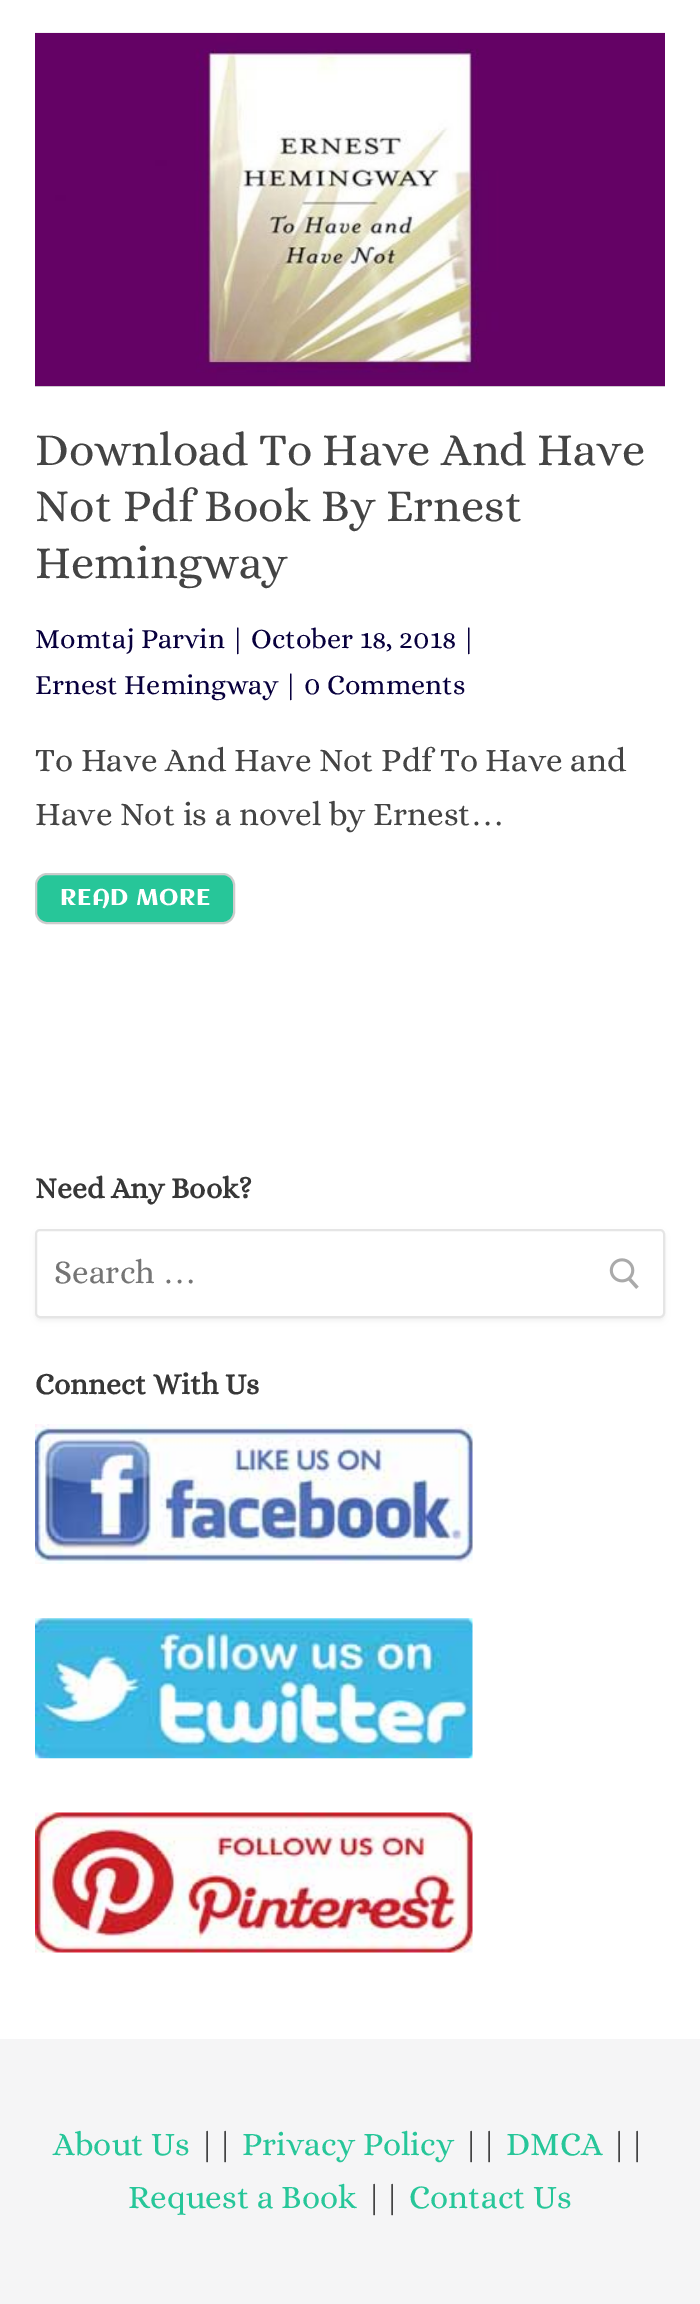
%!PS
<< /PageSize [700 2304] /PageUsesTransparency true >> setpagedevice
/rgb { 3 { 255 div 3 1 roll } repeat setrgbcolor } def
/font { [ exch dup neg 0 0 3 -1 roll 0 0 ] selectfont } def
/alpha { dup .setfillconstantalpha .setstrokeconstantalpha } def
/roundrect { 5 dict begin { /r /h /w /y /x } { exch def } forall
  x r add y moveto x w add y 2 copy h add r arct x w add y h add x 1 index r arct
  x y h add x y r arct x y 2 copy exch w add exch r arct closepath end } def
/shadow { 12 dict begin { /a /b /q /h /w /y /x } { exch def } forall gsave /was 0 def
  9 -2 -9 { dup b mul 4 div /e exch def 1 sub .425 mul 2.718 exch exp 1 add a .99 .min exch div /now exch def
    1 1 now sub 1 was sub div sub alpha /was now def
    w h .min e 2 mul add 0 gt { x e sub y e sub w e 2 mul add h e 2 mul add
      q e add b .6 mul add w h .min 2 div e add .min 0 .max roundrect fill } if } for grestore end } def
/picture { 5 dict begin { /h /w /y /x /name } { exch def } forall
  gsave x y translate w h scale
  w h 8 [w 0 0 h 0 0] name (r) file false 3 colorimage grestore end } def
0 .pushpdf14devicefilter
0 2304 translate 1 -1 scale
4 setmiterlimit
255 255 255 rgb
0 0 700 2304 rectfill
213 213 213 rgb
35 386 630 1 rectfill
(img/1.rgb) 35 32 630 355 picture
39 198 153 rgb
36 874 198 49 11 roundrect gsave fill grestore
204 204 204 rgb
2 setlinewidth
stroke
127 127 127 rgb
35 1232 630 89 5 2.5 0.11 shadow
255 255 255 rgb
35 1229 630 89 5 roundrect fill
0.2 alpha
127 127 127 rgb
36 1230 628 87 4 roundrect stroke
1 alpha
(img/2.rgb) 609 1258 30 31 picture
(img/3.rgb) 35 1424 438 140 picture
(img/4.rgb) 35 1618 438 141 picture
(img/5.rgb) 35 1812 438 141 picture
245 245 246 rgb
0 2039 700 265 rectfill
/Alice-Regular 46.5 font
68 68 68 rgb
[
  [(Download To Have And Have) 35 465]
  [(Not Pdf Book By Ernest) 35 521]
  [(Hemingway) 35 578]
] { aload pop moveto show } forall
/Alice-Regular 28.25 font
8 0 61 rgb
[
  [(Momtaj Parvin) 35 648]
  [(|) 230 648]
  [(October 18, 2018) 251 648]
  [(|) 461 648]
  [(Ernest Hemingway) 35 694]
  [(|) 283 694]
  [(0 Comments) 304 694]
] { aload pop moveto show } forall
/Alice-Regular 33.25 font
68 68 68 rgb
35 771 moveto (To Have And Have Not Pdf To Have and) show
35 825 moveto (Have Not is a novel by Ernest) show
/LiberationSerif-Regular 33.25 font
471 825 moveto (…) show
/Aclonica-Regular 22.75 font
255 255 255 rgb
60 905 moveto 0.5 0 (READ MORE) ashow
/Alice-Bold 29.75 font
55 55 55 rgb
35 1198 moveto (Need Any Book?) show
/Alice-Regular 33.25 font
117 117 117 rgb
54 1283 moveto (Search) show
/LiberationSerif-Regular 33.25 font
163 1283 moveto (…) show
/Alice-Bold 29.75 font
55 55 55 rgb
35 1394 moveto (Connect With Us) show
/Alice-Regular 33.25 font
39 198 153 rgb
53 2155 moveto (About Us) show
68 68 68 rgb
198 2155 moveto (||) show
39 198 153 rgb
242 2155 moveto (Privacy Policy) show
68 68 68 rgb
462 2155 moveto (||) show
39 198 153 rgb
506 2155 moveto (DMCA) show
68 68 68 rgb
610 2155 moveto (||) show
39 198 153 rgb
128 2208 moveto (Request a Book) show
68 68 68 rgb
365 2208 moveto (||) show
39 198 153 rgb
409 2208 moveto (Contact Us) show
.poppdf14devicefilter showpage
